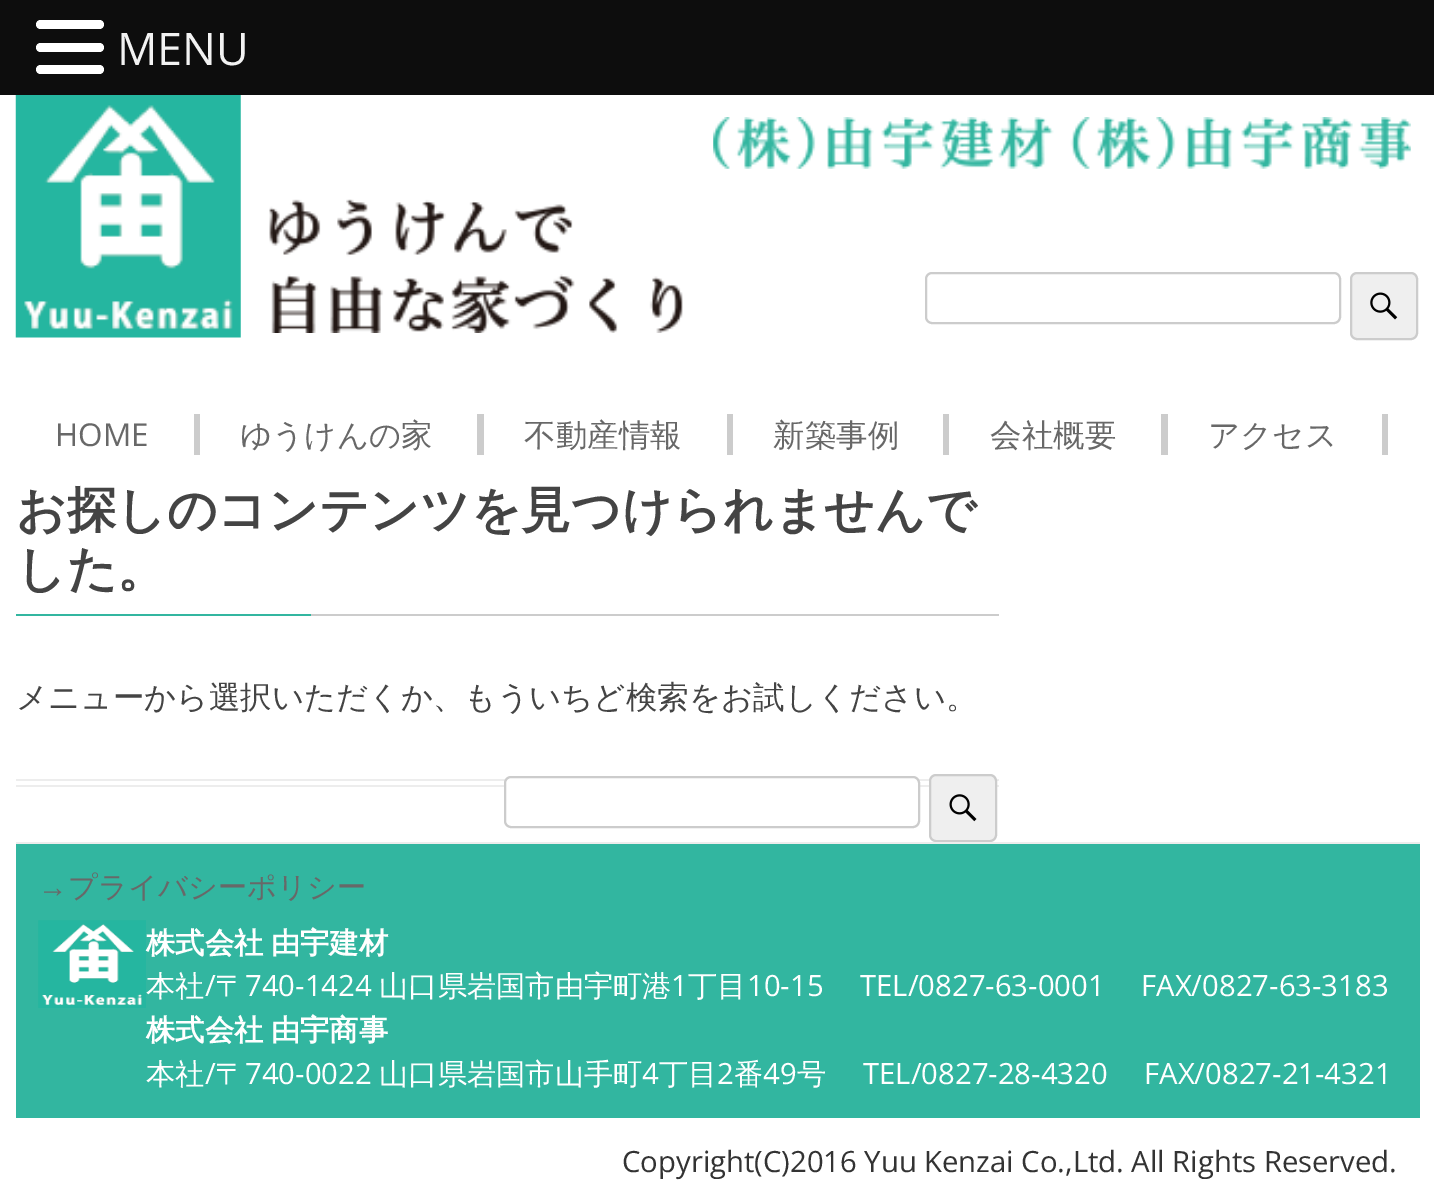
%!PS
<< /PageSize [1434 1187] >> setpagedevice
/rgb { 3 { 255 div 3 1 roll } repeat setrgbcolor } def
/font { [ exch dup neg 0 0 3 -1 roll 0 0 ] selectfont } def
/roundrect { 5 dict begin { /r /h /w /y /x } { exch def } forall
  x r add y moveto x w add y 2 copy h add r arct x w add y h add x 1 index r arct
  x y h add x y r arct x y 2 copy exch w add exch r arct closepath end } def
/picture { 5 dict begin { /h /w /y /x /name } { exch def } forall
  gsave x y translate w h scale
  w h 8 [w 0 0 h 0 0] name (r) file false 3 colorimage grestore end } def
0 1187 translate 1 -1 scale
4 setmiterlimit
255 255 255 rgb
0 0 1434 1187 rectfill
13 13 13 rgb
0 0 1434 95 rectfill
255 255 255 rgb
36 20 68 9 4.5 roundrect fill
36 43 68 9 4.5 roundrect fill
36 65 68 9 4.5 roundrect fill
(img/1.rgb) 269 199 414 134 picture
(img/2.rgb) 15 95 226 243 picture
(img/3.rgb) 713 117 698 52 picture
204 204 204 rgb
2 setlinewidth
926 273 414 50 6 roundrect stroke
239 239 239 rgb
1351 273 66 66 6 roundrect gsave fill grestore
204 204 204 rgb
stroke
(img/4.rgb) 1370 292 28 28 picture
[
  [194 414 6 41 204 204 204]
  [477 414 7 41 204 204 204]
  [727 414 6 41 204 204 204]
  [943 414 6 41 204 204 204]
  [1161 414 7 41 204 204 204]
  [1382 414 6 41 204 204 204]
  [16 779 983 2 237 237 237]
  [16 785 983 2 237 237 237]
  [311 614 688 2 204 204 204]
  [16 614 295 2 51 182 160]
] { aload pop rgb rectfill } forall
255 255 255 rgb
505 777 414 50 6 roundrect gsave fill grestore
204 204 204 rgb
stroke
239 239 239 rgb
930 775 66 66 6 roundrect gsave fill grestore
204 204 204 rgb
stroke
(img/5.rgb) 949 794 28 28 picture
50 182 160 rgb
16 844 1404 274 rectfill
237 237 237 rgb
16 842 1404 2 rectfill
(img/6.rgb) 38 920 108 88 picture
/OpenSans-Regular 45 font
242 242 242 rgb
117 65 moveto (MENU) show
/OpenSans-Regular 31.5 font
104 104 104 rgb
55 446 moveto (HOME) show
/WenQuanYiZenHei-Medium 31.5 font
[
  [(ゆうけんの家) 240 446]
  [(不動産情報) 524 446]
  [(新築事例) 773 446]
  [(会社概要) 990 446]
  [(アクセス) 1208 446]
] { aload pop moveto show } forall
/WenQuanYiZenHei-Bold 49.5 font
68 68 68 rgb
16 527 moveto (お探しのコンテンツを見つけられませんで) show
16 586 moveto (した。) show
/WenQuanYiZenHei-Medium 31.5 font
16 708 moveto (メニューから選択いただくか、もういちど検索をお試しください。) show
/LiberationSans-Regular 29.25 font
104 104 104 rgb
38 897 moveto (→) show
/WenQuanYiZenHei-Medium 29.25 font
68 897 moveto (プライバシーポリシー) show
/WenQuanYiZenHei-Bold 29.25 font
255 255 255 rgb
146 953 moveto -1 0 32 (株式会社 由宇建材) widthshow
/WenQuanYiZenHei-Medium 29.25 font
146 996 moveto (本社) show
/OpenSans-Regular 29.25 font
205 996 moveto (/) show
/WenQuanYiZenHei-Medium 29.25 font
215 996 moveto (〒) show
/OpenSans-Regular 29.25 font
245 996 moveto (740-1424) show
/WenQuanYiZenHei-Medium 29.25 font
379 996 moveto (山口県岩国市由宇町港) show
/OpenSans-Regular 29.25 font
671 996 moveto (1) show
/WenQuanYiZenHei-Medium 29.25 font
688 996 moveto (丁目) show
/OpenSans-Regular 29.25 font
[
  [(10-15) 747 996]
  [(TEL/0827-63-0001) 860 996]
  [(FAX/0827-63-3183) 1141 996]
] { aload pop moveto show } forall
/WenQuanYiZenHei-Bold 29.25 font
146 1040 moveto -1 0 32 (株式会社 由宇商事) widthshow
/WenQuanYiZenHei-Medium 29.25 font
146 1084 moveto (本社) show
/OpenSans-Regular 29.25 font
205 1084 moveto (/) show
/WenQuanYiZenHei-Medium 29.25 font
215 1084 moveto (〒) show
/OpenSans-Regular 29.25 font
245 1084 moveto (740-0022) show
/WenQuanYiZenHei-Medium 29.25 font
379 1084 moveto (山口県岩国市山手町) show
/OpenSans-Regular 29.25 font
642 1084 moveto (4) show
/WenQuanYiZenHei-Medium 29.25 font
659 1084 moveto (丁目) show
/OpenSans-Regular 29.25 font
717 1084 moveto (2) show
/WenQuanYiZenHei-Medium 29.25 font
734 1084 moveto (番) show
/OpenSans-Regular 29.25 font
763 1084 moveto (49) show
/WenQuanYiZenHei-Medium 29.25 font
797 1084 moveto (号) show
/OpenSans-Regular 29.25 font
863 1084 moveto (TEL/0827-28-4320) show
1144 1084 moveto (FAX/0827-21-4321) show
51 51 51 rgb
622 1172 moveto (Copyright\(C\)2016 Yuu Kenzai Co.,Ltd. All Rights Reserved.) show
showpage
